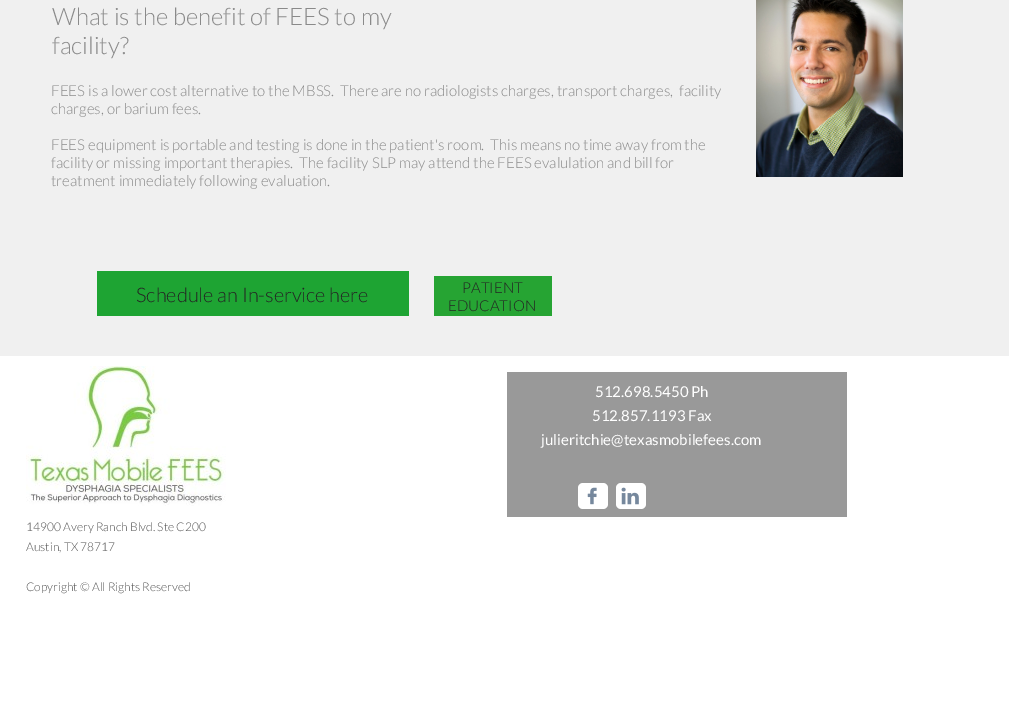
%!PS
<< /PageSize [1009 724] >> setpagedevice
/rgb { 3 { 255 div 3 1 roll } repeat setrgbcolor } def
/font { [ exch dup neg 0 0 3 -1 roll 0 0 ] selectfont } def
/roundrect { 5 dict begin { /r /h /w /y /x } { exch def } forall
  x r add y moveto x w add y 2 copy h add r arct x w add y h add x 1 index r arct
  x y h add x y r arct x y 2 copy exch w add exch r arct closepath end } def
/picture { 5 dict begin { /h /w /y /x /name } { exch def } forall
  gsave x y translate w h scale
  w h 8 [w 0 0 h 0 0] name (r) file false 3 colorimage grestore end } def
0 724 translate 1 -1 scale
4 setmiterlimit
255 255 255 rgb
0 0 1009 724 rectfill
240 240 240 rgb
0 0 1009 356 rectfill
(img/1.rgb) 756 0 147 177 picture
30 164 51 rgb
97 271 312 45 rectfill
38 164 51 rgb
434 276 118 40 rectfill
(img/2.rgb) 26 366 200 140 picture
153 153 153 rgb
507 372 340 145 rectfill
255 255 255 rgb
578 483 30 26 5 roundrect fill
(img/3.rgb) 587 487 10 18 picture
616 483 30 26 5 roundrect fill
(img/4.rgb) 621 487 18 18 picture
/Lato-Light 24 font
138 138 138 rgb
52 25 moveto (What is the benefit of FEES to my) show
52 54 moveto (facility?) show
/Lato-Light 15 font
[
  [(FEES is a lower cost alternative to the MBSS.  There are no radiologists charges, transport charges,  facility) 51 96]
  [(charges, or barium fees.) 51 114]
  [(FEES equipment is portable and testing is done in the patient's room.  This means no time away from the) 51 150]
  [(facility or missing important therapies.  The facility SLP may attend the FEES evalulation and bill for) 51 168]
  [(treatment immediately following evaluation.) 51 186]
] { aload pop moveto show } forall
/Lato-Light 20 font
36 36 36 rgb
136 302 moveto (Schedule an In-service here) show
/Lato-Light 15 font
462 293 moveto (PATIENT) show
448 311 moveto (EDUCATION) show
/Lato-Regular 15 font
255 255 255 rgb
[
  [(512.698.5450 Ph) 595 397]
  [(512.857.1193 Fax) 592 421]
  [(julieritchie@texasmobilefees.com) 541 445]
] { aload pop moveto show } forall
/Lato-Light 12 font
87 87 87 rgb
[
  [(14900 Avery Ranch Blvd. Ste C200) 26 531]
  [(Austin, TX 78717) 26 551]
  [(Copyright © All Rights Reserved) 26 591]
] { aload pop moveto show } forall
showpage
